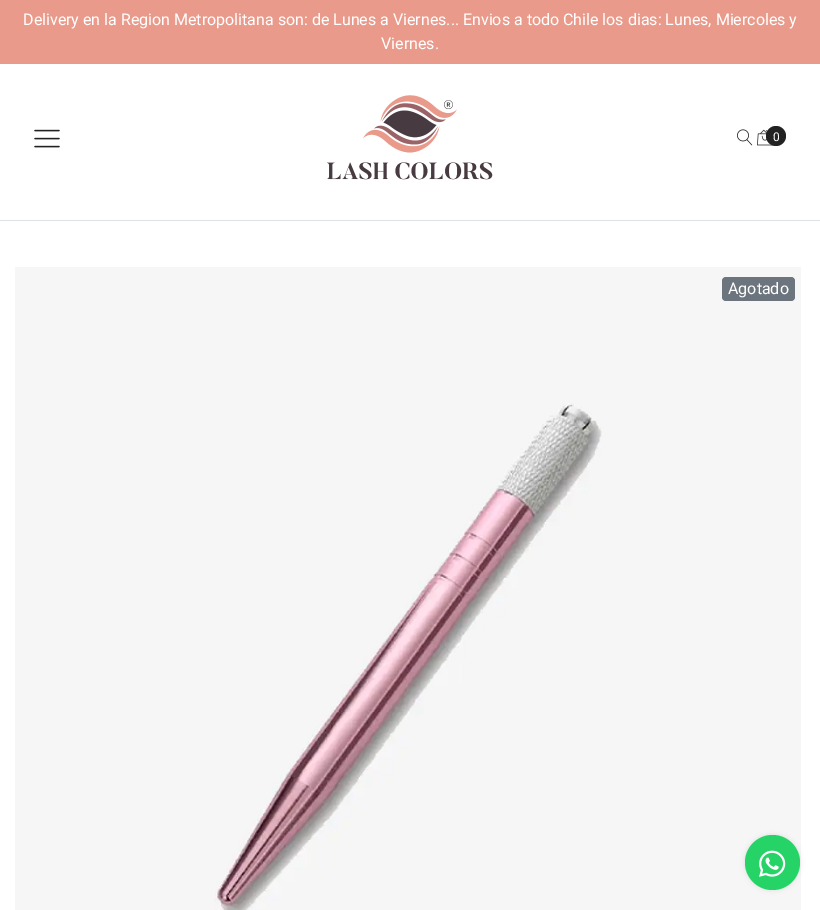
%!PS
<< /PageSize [820 910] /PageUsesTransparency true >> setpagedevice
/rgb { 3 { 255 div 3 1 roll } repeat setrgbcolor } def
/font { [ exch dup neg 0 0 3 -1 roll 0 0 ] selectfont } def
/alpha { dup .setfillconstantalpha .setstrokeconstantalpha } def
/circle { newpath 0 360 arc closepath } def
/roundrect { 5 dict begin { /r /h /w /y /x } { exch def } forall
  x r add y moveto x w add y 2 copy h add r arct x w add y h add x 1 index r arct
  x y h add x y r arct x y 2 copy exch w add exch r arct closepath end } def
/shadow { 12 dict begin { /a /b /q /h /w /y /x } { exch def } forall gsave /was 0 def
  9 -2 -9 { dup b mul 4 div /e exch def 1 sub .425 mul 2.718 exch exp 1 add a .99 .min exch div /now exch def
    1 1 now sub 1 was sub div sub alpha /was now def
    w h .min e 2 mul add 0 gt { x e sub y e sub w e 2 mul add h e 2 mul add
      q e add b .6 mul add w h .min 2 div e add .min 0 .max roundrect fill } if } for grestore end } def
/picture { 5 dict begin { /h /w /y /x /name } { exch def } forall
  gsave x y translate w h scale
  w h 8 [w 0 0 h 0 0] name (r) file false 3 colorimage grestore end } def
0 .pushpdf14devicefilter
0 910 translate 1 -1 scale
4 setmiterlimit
255 255 255 rgb
0 0 820 910 rectfill
222 226 230 rgb
0 220 820 1 rectfill
233 154 138 rgb
0 0 820 64 rectfill
(img/1.rgb) 34 129 26 19 picture
(img/2.rgb) 327 95 166 85 picture
(img/3.rgb) 737 129 16 17 picture
(img/4.rgb) 757 129 16 17 picture
34 34 34 rgb
776 136 10 circle fill
(img/5.rgb) 15 267 786 643 picture
108 117 125 rgb
722 277 73 24 4 roundrect fill
0 0 0 rgb
745 835 55 55 27.5 2.5 0.11 shadow
37 211 102 rgb
772.5 862.5 27.5 circle fill
(img/6.rgb) 759 850 27 27 picture
/Roboto-Regular 16 font
255 255 255 rgb
23 25 moveto (Delivery en la Region Metropolitana son: de Lunes a Viernes... Envios a todo Chile los dias: Lunes, Miercoles y) show
381 49 moveto (Viernes.) show
/Roboto-Regular 12 font
773 141 moveto (0) show
/Roboto-Regular 16 font
728 294 moveto (Agotado) show
.poppdf14devicefilter showpage
